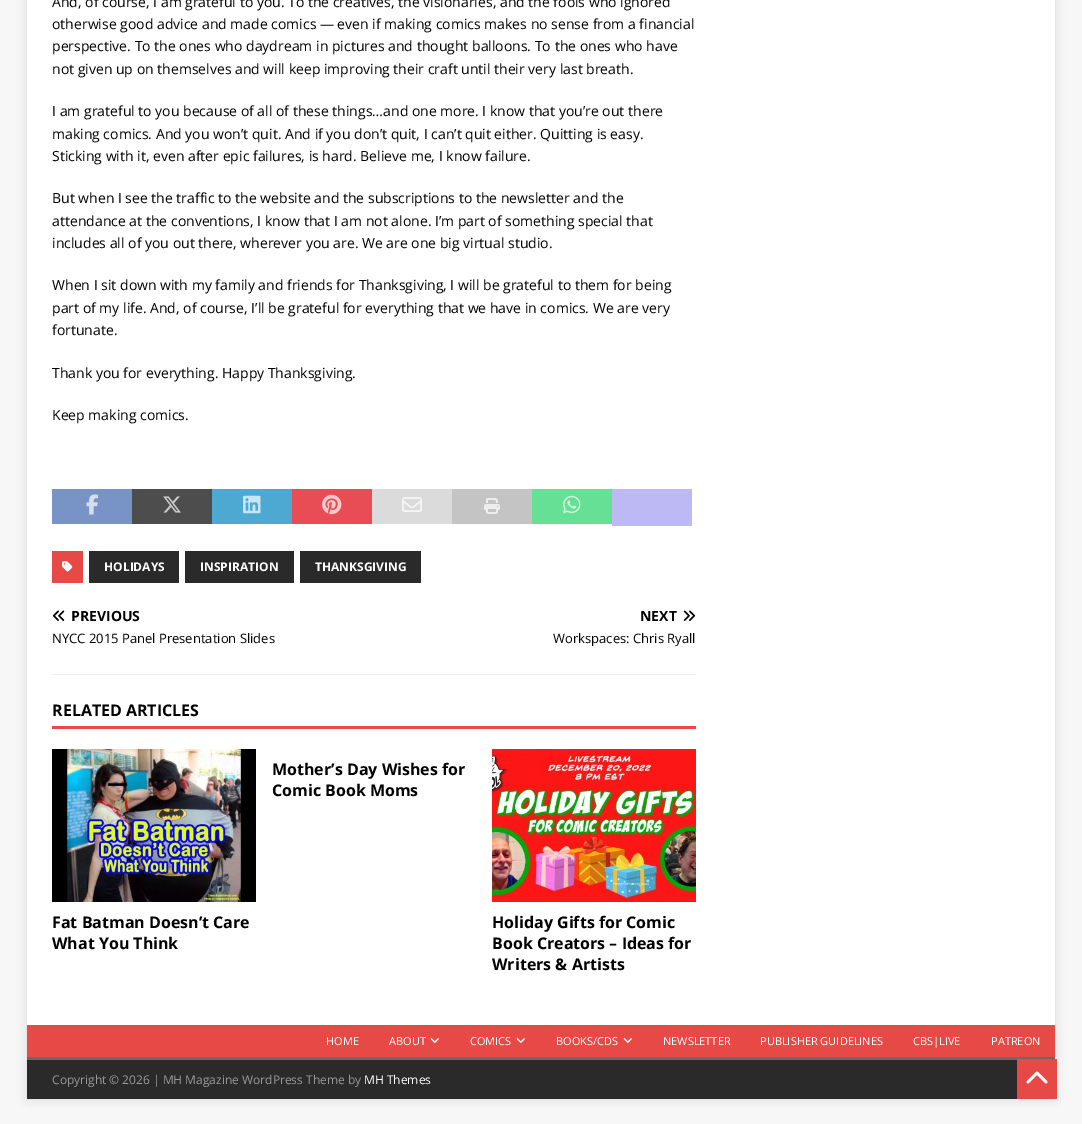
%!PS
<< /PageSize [1082 1124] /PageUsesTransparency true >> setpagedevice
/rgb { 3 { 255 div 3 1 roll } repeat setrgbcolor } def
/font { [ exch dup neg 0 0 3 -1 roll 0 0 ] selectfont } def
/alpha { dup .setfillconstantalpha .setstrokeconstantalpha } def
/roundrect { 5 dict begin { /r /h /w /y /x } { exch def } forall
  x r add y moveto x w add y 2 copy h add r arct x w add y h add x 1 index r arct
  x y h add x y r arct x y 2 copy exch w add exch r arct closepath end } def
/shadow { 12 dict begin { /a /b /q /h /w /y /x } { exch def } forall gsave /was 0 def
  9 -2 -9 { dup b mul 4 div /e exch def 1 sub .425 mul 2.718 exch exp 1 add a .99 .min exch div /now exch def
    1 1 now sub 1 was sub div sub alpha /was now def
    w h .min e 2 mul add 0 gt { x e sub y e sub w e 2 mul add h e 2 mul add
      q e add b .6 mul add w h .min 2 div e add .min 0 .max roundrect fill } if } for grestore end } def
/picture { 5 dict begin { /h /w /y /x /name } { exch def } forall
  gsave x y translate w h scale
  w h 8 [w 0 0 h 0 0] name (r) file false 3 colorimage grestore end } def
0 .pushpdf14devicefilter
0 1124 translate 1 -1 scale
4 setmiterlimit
247 247 247 rgb
0 0 1082 1124 rectfill
50 50 50 rgb
27 -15 1028 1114 0 5 0.17 shadow
255 255 255 rgb
27 0 1028 1025 rectfill
120 147 198 rgb
52 489 80 35 rectfill
(img/1.rgb) 86 494 12 21 picture
77 77 77 rgb
132 489 80 35 rectfill
(img/2.rgb) 163 496 18 17 picture
77 169 210 rgb
212 489 80 35 rectfill
(img/3.rgb) 243 495 18 19 picture
232 77 86 rgb
292 489 80 35 rectfill
(img/4.rgb) 322 494 20 21 picture
219 219 219 rgb
372 489 80 35 rectfill
(img/5.rgb) 402 497 20 15 picture
196 196 196 rgb
452 489 80 35 rectfill
(img/6.rgb) 484 498 16 16 picture
102 224 148 rgb
532 489 80 35 rectfill
(img/7.rgb) 563 495 18 19 picture
189 185 245 rgb
612 489 80 37 rectfill
230 73 70 rgb
52 551 31 32 rectfill
(img/8.rgb) 62 561 11 11 picture
[
  [89 551 90 32 42 42 42]
  [185 551 109 32 42 42 42]
  [300 551 121 32 42 42 42]
  [52 674 644 1 235 235 235]
] { aload pop rgb rectfill } forall
(img/9.rgb) 52 610 13 11 picture
(img/10.rgb) 683 610 13 11 picture
230 73 70 rgb
52 726 644 3 rectfill
(img/11.rgb) 52 749 204 153 picture
(img/12.rgb) 492 749 204 153 picture
27 1025 1028 32 rectfill
(img/13.rgb) 430 1038 9 5 picture
(img/13.rgb) 516 1038 9 5 picture
(img/13.rgb) 623 1038 9 5 picture
[
  [27 1060 990 39 42 42 42]
  [27 1057 1028 3 106 106 106]
  [1017 1059 40 40 230 73 70]
] { aload pop rgb rectfill } forall
(img/14.rgb) 1026 1071 22 13 picture
/OpenSans-Regular 14 font
0 0 0 rgb
[
  [(And, of course, I am grateful to you. To the creatives, the visionaries, and the fools who ignored) 52 7]
  [(otherwise good advice and made comics — even if making comics makes no sense from a financial) 52 29]
  [(perspective. To the ones who daydream in pictures and thought balloons. To the ones who have) 52 51]
  [(not given up on themselves and will keep improving their craft until their very last breath.) 52 74]
  [(I am grateful to you because of all of these things…and one more. I know that you’re out there) 52 116]
  [(making comics. And you won’t quit. And if you don’t quit, I can’t quit either. Quitting is easy.) 52 139]
  [(Sticking with it, even after epic failures, is hard. Believe me, I know failure.) 52 161]
  [(But when I see the traffic to the website and the subscriptions to the newsletter and the) 52 203]
  [(attendance at the conventions, I know that I am not alone. I’m part of something special that) 52 226]
  [(includes all of you out there, wherever you are. We are one big virtual studio.) 52 248]
  [(When I sit down with my family and friends for Thanksgiving, I will be grateful to them for being) 52 290]
  [(part of my life. And, of course, I’ll be grateful for everything that we have in comics. We are very) 52 313]
  [(fortunate.) 52 335]
  [(Thank you for everything. Happy Thanksgiving.) 52 378]
  [(Keep making comics.) 52 420]
] { aload pop moveto show } forall
/OpenSans-Bold 12 font
255 255 255 rgb
[
  [(HOLIDAYS) 104 571]
  [(INSPIRATION) 200 571]
  [(THANKSGIVING) 315 571]
] { aload pop moveto show } forall
/OpenSans-Bold 14 font
0 0 0 rgb
71 621 moveto (PREVIOUS) show
/OpenSans-Regular 13 font
52 643 moveto (NYCC 2015 Panel Presentation Slides) show
/OpenSans-Bold 14 font
640 621 moveto (NEXT) show
/OpenSans-Regular 13 font
553 643 moveto (Workspaces: Chris Ryall) show
/OpenSans-Bold 16 font
[
  [(RELATED ARTICLES) 52 716]
  [(Mother’s Day Wishes for) 272 775]
  [(Comic Book Moms) 272 796]
  [(Fat Batman Doesn’t Care) 52 928]
  [(What You Think) 52 949]
  [(Holiday Gifts for Comic) 492 928]
  [(Book Creators – Ideas for) 492 949]
  [(Writers & Artists) 492 970]
] { aload pop moveto show } forall
/OpenSans-Regular 11 font
255 255 255 rgb
[
  [(HOME) 326 1045]
  [(ABOUT) 389 1045]
  [(COMICS) 470 1045]
  [(BOOKS/CDS) 556 1045]
  [(NEWSLETTER) 663 1045]
  [(PUBLISHER GUIDELINES) 760 1045]
  [(CBS|LIVE) 913 1045]
  [(PATREON) 991 1045]
] { aload pop moveto show } forall
/OpenSans-Regular 12 font
153 153 153 rgb
52 1084 moveto (Copyright © 2026 | MH Magazine WordPress Theme by) show
255 255 255 rgb
364 1084 moveto (MH Themes) show
.poppdf14devicefilter showpage
